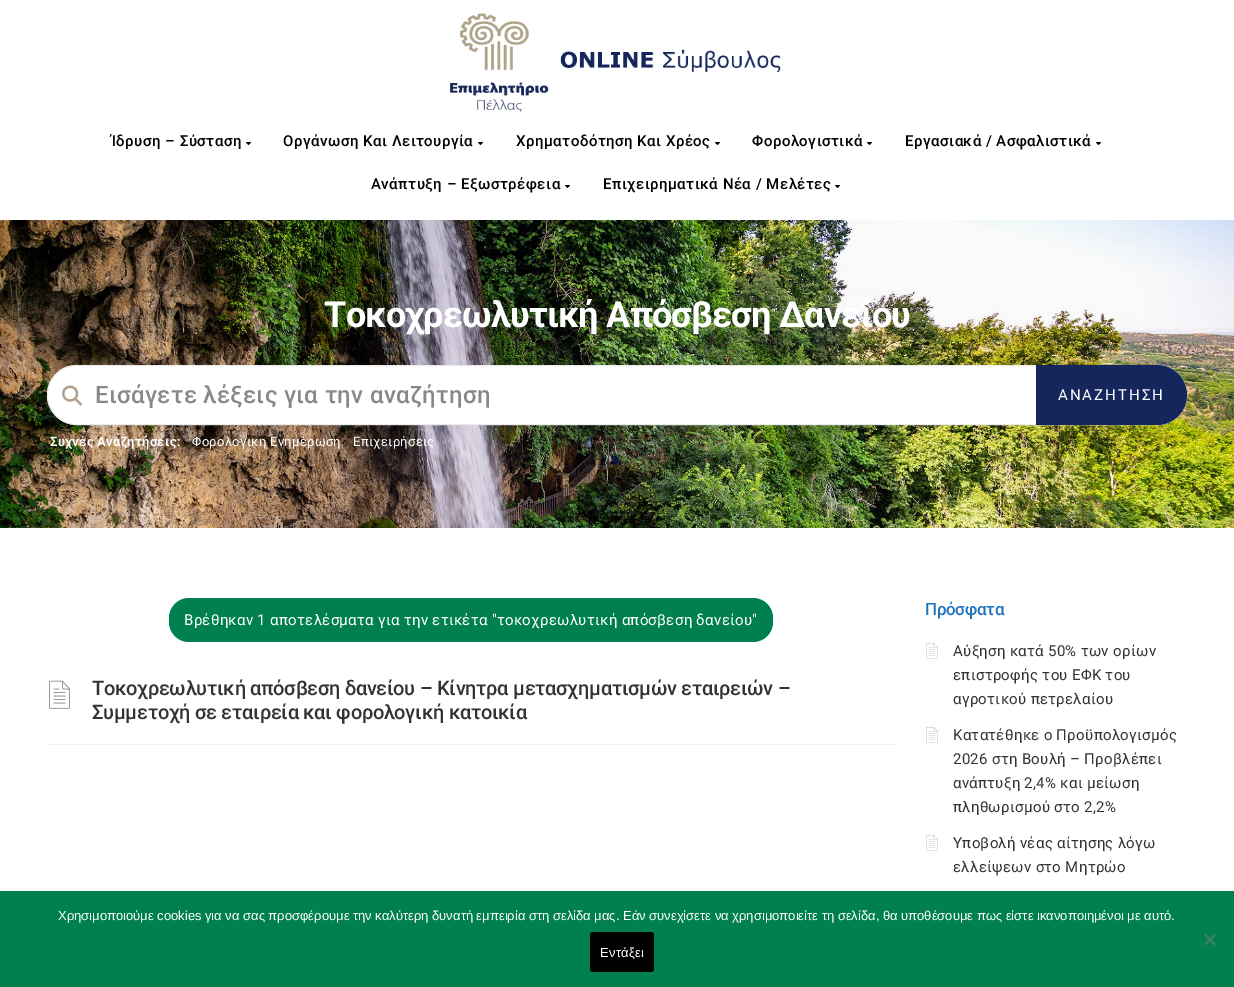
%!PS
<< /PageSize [1234 987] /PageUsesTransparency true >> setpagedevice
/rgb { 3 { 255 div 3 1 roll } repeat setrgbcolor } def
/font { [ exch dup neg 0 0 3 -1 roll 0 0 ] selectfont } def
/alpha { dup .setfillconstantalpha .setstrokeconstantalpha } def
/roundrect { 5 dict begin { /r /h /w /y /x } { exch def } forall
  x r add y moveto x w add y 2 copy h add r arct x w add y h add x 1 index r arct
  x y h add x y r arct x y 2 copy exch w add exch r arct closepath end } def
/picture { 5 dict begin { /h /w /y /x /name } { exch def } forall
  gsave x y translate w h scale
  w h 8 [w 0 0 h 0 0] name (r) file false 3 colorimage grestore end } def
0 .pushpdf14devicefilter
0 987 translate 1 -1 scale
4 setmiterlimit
255 255 255 rgb
0 0 1234 987 rectfill
(img/1.rgb) 449 13 332 99 picture
(img/2.rgb) 246 142 5 3 picture
(img/2.rgb) 478 142 5 3 picture
(img/2.rgb) 715 142 5 3 picture
(img/2.rgb) 867 142 5 3 picture
(img/2.rgb) 1096 142 5 3 picture
(img/2.rgb) 565 185 5 3 picture
(img/2.rgb) 835 185 5 3 picture
(img/3.rgb) 0 220 1234 308 picture
47 365 1140 60 30 roundrect fill
0.9 alpha
233 233 233 rgb
47.5 365.5 1139 59 29.5 roundrect stroke
1 alpha
(img/4.rgb) 62 385 20 21 picture
20 38 91 rgb
1036 365 moveto 1157 365 lineto 1173.5 365 1187 378.5 1187 395 curveto 1187 411.5 1173.5 425 1157 425 curveto 1036 425 lineto closepath fill
0 128 79 rgb
169 598 604 44 20 roundrect fill
239 239 239 rgb
48 744 847 1 rectfill
(img/5.rgb) 49 680 21 29 picture
(img/6.rgb) 926 643 12 16 picture
(img/6.rgb) 926 727 12 16 picture
(img/6.rgb) 926 835 12 16 picture
0 128 79 rgb
0 891 1234 96 rectfill
64 128 104 rgb
1214.5 933.5 moveto 1216 935 lineto 1205.5 945.5 lineto 1204 944 lineto closepath fill
1204 935 moveto 1205.5 933.5 lineto 1216 944 lineto 1214.5 945.5 lineto closepath fill
0 0 0 rgb
590 932 64 40 3 roundrect fill
/Roboto-Medium 15 font
111 146 moveto 0.5 0 (Ίδρυση – Σύσταση) ashow
283 146 moveto 0.5 0 (Οργάνωση Και Λειτουργία) ashow
516 146 moveto 0.5 0 (Χρηματοδότηση Και Χρέος) ashow
752 146 moveto 0.5 0 (Φορολογιστικά) ashow
905 146 moveto 0.5 0 (Εργασιακά / Ασφαλιστικά) ashow
371 189 moveto 0.5 0 (Ανάπτυξη – Εξωστρέφεια) ashow
603 189 moveto 0.5 0 (Επιχειρηματικά Νέα / Μελέτες) ashow
/Roboto-Bold 36 font
255 255 255 rgb
324 327 moveto -0.8 0 (Τοκοχρεωλυτική Απόσβεση Δανείου) ashow
/Roboto-Medium 24 font
136 136 136 rgb
95 403 moveto 0.3 0 (Εισάγετε λέξεις για την αναζήτηση) ashow
/Roboto-Regular 15 font
255 255 255 rgb
1058 400 moveto 2 0 (AΝΑΖΗΤΗΣΗ) ashow
/Roboto-SemiBold 13 font
50 446 moveto 0.3 0 (Συχνές Αναζητήσεις:) ashow
/Roboto-Regular 13 font
192 446 moveto 0.3 0 (Φορολογικη Ενημέρωση) ashow
181 181 181 rgb
341 446 moveto 0.3 0 (,) ashow
255 255 255 rgb
353 446 moveto 0.3 0 (Επιχειρήσεις) ashow
/Roboto-Regular 15 font
184 625 moveto 0.3 0 (Βρέθηκαν 1 αποτελέσματα για την ετικέτα "τοκοχρεωλυτική απόσβεση δανείου") ashow
/Roboto-Medium 20 font
51 51 51 rgb
92 695 moveto -0.3 0 (Τοκοχρεωλυτική απόσβεση δανείου – Κίνητρα μετασχηματισμών εταιρειών –) ashow
92 719 moveto -0.3 0 (Συμμετοχή σε εταιρεία και φορολογική κατοικία) ashow
/Roboto-Medium 17 font
30 115 190 rgb
925 615 moveto -0.3 0 (Πρόσφατα) ashow
/Roboto-Regular 15 font
51 51 51 rgb
953 656 moveto 0.3 0 (Αύξηση κατά 50% των ορίων) ashow
953 680 moveto 0.3 0 (επιστροφής του ΕΦΚ του) ashow
953 704 moveto 0.3 0 (αγροτικού πετρελαίου) ashow
953 740 moveto 0.3 0 (Κατατέθηκε ο Προϋπολογισμός) ashow
953 764 moveto 0.3 0 (2026 στη Βουλή – Προβλέπει) ashow
953 788 moveto 0.3 0 (ανάπτυξη 2,4% και μείωση) ashow
953 812 moveto 0.3 0 (πληθωρισμού στο 2,2%) ashow
953 848 moveto 0.3 0 (Υποβολή νέας αίτησης λόγω) ashow
953 872 moveto 0.3 0 (ελλείψεων στο Μητρώο) ashow
/LiberationSans-Regular 13 font
255 255 255 rgb
58 920 moveto (Χρησιμοποιούμε cookies για να σας προσφέρουμε την καλύτερη δυνατή εμπειρία στη σελίδα μας. Εάν συνεχίσετε να χρησιμοποιείτε τη σελίδα, θα υποθέσουμε πως είστε ικανοποιημένοι με αυτό.) show
600 957 moveto 0.25 0 (Εντάξει) ashow
.poppdf14devicefilter showpage
